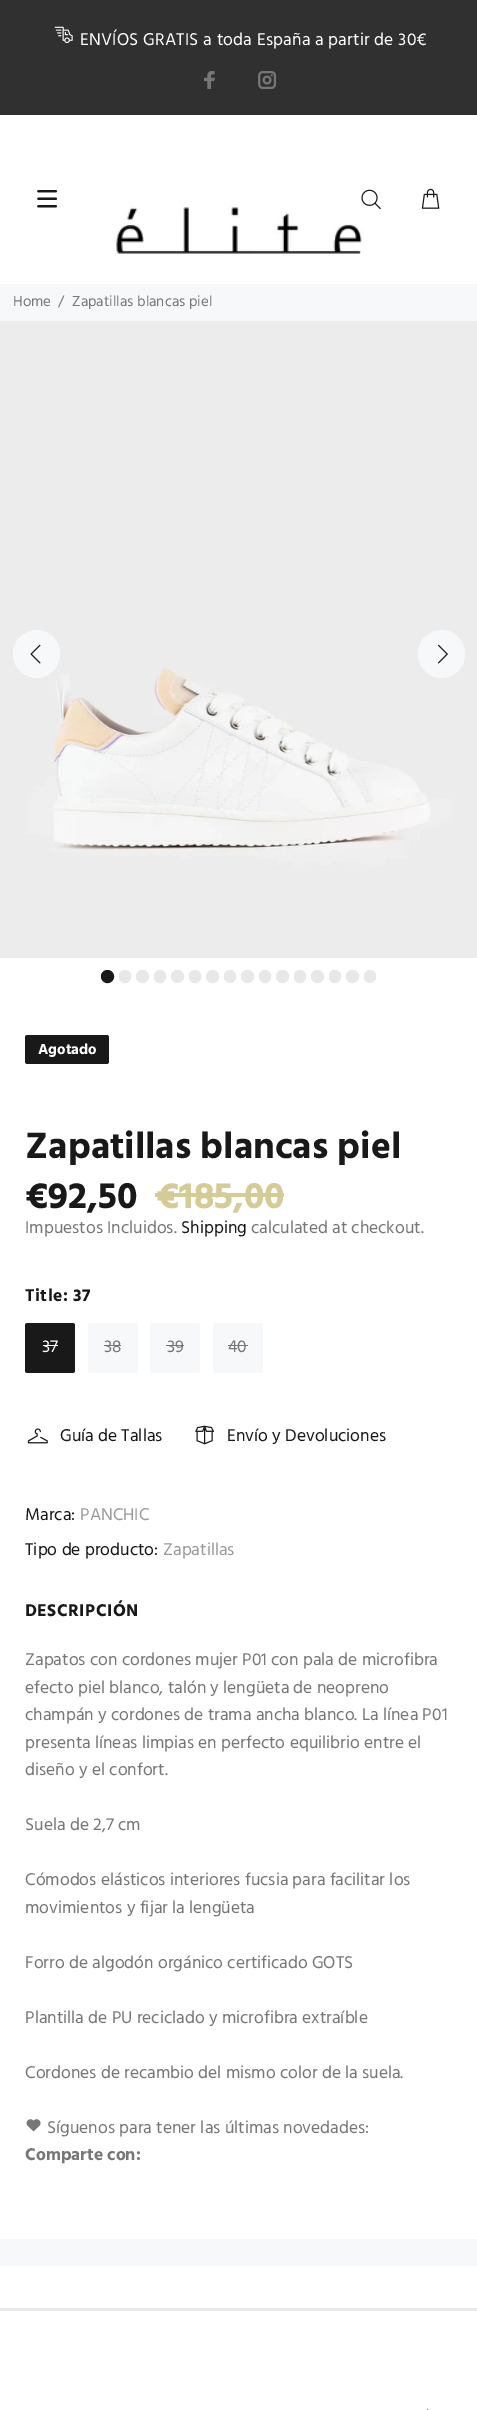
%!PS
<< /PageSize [477 2410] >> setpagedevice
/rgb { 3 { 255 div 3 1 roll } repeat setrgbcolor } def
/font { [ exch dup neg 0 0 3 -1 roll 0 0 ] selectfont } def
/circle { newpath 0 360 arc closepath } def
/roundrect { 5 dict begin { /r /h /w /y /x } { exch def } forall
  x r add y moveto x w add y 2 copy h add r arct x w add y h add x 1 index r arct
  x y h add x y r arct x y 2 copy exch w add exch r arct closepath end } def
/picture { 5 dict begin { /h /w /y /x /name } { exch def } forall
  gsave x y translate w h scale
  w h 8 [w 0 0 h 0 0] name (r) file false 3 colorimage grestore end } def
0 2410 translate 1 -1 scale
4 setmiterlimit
255 255 255 rgb
0 0 477 2410 rectfill
48 48 48 rgb
0 0 477 115 rectfill
(img/1.rgb) 54 26 19 17 picture
(img/2.rgb) 203 71 12 18 picture
(img/3.rgb) 258 71 19 18 picture
(img/4.rgb) 37 190 21 18 picture
(img/7.rgb) 114 205 250 49 picture
(img/5.rgb) 361 189 20 21 picture
(img/6.rgb) 421 188 19 21 picture
247 248 250 rgb
0 284 477 37 rectfill
(img/8.rgb) 0 321 477 637 picture
13 630 47 48 23.5 roundrect fill
(img/9.rgb) 30 644 11 20 picture
418 630 47 48 23.5 roundrect fill
(img/10.rgb) 437 644 11 20 picture
25 25 25 rgb
107.5 976.5 6 circle gsave fill grestore
stroke
233 231 231 rgb
119.5 970.5 11 12 5.5 roundrect gsave fill grestore
stroke
142.5 976.5 6 circle gsave fill grestore
stroke
154.5 970.5 11 12 5.5 roundrect gsave fill grestore
stroke
177.5 976.5 6 circle gsave fill grestore
stroke
189.5 970.5 11 12 5.5 roundrect gsave fill grestore
stroke
212.5 976.5 6 circle gsave fill grestore
stroke
224.5 970.5 11 12 5.5 roundrect gsave fill grestore
stroke
247.5 976.5 6 circle gsave fill grestore
stroke
259.5 970.5 11 12 5.5 roundrect gsave fill grestore
stroke
282.5 976.5 6 circle gsave fill grestore
stroke
294.5 970.5 11 12 5.5 roundrect gsave fill grestore
stroke
317.5 976.5 6 circle gsave fill grestore
stroke
329.5 970.5 11 12 5.5 roundrect gsave fill grestore
stroke
352.5 976.5 6 circle gsave fill grestore
stroke
364.5 970.5 11 12 5.5 roundrect gsave fill grestore
stroke
25 25 25 rgb
25 1035 84 29 2.5 roundrect fill
212 203 151 rgb
155 1193 129 4 rectfill
25 25 25 rgb
25 1323 50 50 2.5 roundrect fill
255 255 255 rgb
43 1345 15 1 rectfill
247 248 250 rgb
88 1323 50 50 2.5 roundrect fill
119 119 119 rgb
104 1345 17 1 rectfill
247 248 250 rgb
150 1323 50 50 2.5 roundrect fill
119 119 119 rgb
166 1345 18 1 rectfill
247 248 250 rgb
213 1323 50 50 2.5 roundrect fill
119 119 119 rgb
228 1345 20 1 rectfill
(img/11.rgb) 27 1428 21 16 picture
(img/12.rgb) 195 1425 19 20 picture
(img/13.rgb) 26 2119 15 13 picture
247 248 250 rgb
0 2239 477 27 rectfill
233 231 231 rgb
0 2308 477 3 rectfill
(img/14.rgb) 426 2408 3 2 picture
/Hind-Regular 17.5 font
255 255 255 rgb
80 45 moveto 0.2 0 (ENVÍOS GRATIS a toda España a partir de 30€) ashow
/Hind-Regular 15 font
119 119 119 rgb
[
  [(Home) 13 306]
  [(/) 58 306]
  [(Zapatillas blancas piel) 72 306]
] { aload pop moveto show } forall
/Hind-Bold 15 font
255 255 255 rgb
38 1054 moveto (Agotado) show
/Hind-Bold 37.5 font
25 25 25 rgb
25 1158 moveto (Zapatillas blancas piel) show
25 1208 moveto (€92,50) show
212 203 151 rgb
156 1208 moveto (€185,00) show
/Hind-Regular 17.5 font
119 119 119 rgb
25 1233 moveto (Impuestos Incluidos.) show
25 25 25 rgb
181 1233 moveto (Shipping) show
119 119 119 rgb
251 1233 moveto (calculated at checkout.) show
/Hind-Bold 17.5 font
25 25 25 rgb
25 1301 moveto 0.5 0 (Title: 37) ashow
/Hind-Regular 17.5 font
255 255 255 rgb
42 1352 moveto (37) show
119 119 119 rgb
[
  [(38) 104 1352]
  [(39) 167 1352]
  [(40) 228 1352]
] { aload pop moveto show } forall
25 25 25 rgb
[
  [(Guía de Tallas) 60 1441]
  [(Envío y Devoluciones) 227 1441]
  [(Marca:) 25 1520]
] { aload pop moveto show } forall
153 153 153 rgb
80 1520 moveto (PANCHIC) show
25 25 25 rgb
25 1555 moveto (Tipo de producto:) show
153 153 153 rgb
163 1555 moveto (Zapatillas) show
/Hind-Bold 17.5 font
25 25 25 rgb
25 1616 moveto 0.5 0 (DESCRIPCIÓN) ashow
/Hind-Regular 17.5 font
119 119 119 rgb
[
  [(Zapatos con cordones mujer P01 con pala de microfibra) 25 1665]
  [(efecto piel blanco, talón y lengüeta de neopreno) 25 1693]
  [(champán y cordones de trama ancha blanco. La línea P01) 25 1720]
  [(presenta líneas limpias en perfecto equilibrio entre el) 25 1748]
  [(diseño y el confort.) 25 1775]
  [(Suela de 2,7 cm) 25 1830]
  [(Cómodos elásticos interiores fucsia para facilitar los) 25 1885]
  [(movimientos y fijar la lengüeta) 25 1913]
  [(Forro de algodón orgánico certificado GOTS) 25 1968]
  [(Plantilla de PU reciclado y microfibra extraíble) 25 2023]
  [(Cordones de recambio del mismo color de la suela.) 25 2078]
  [(Síguenos para tener las últimas novedades:) 47 2133]
] { aload pop moveto show } forall
/Hind-Bold 17.5 font
25 2160 moveto (Comparte con:) show
showpage
